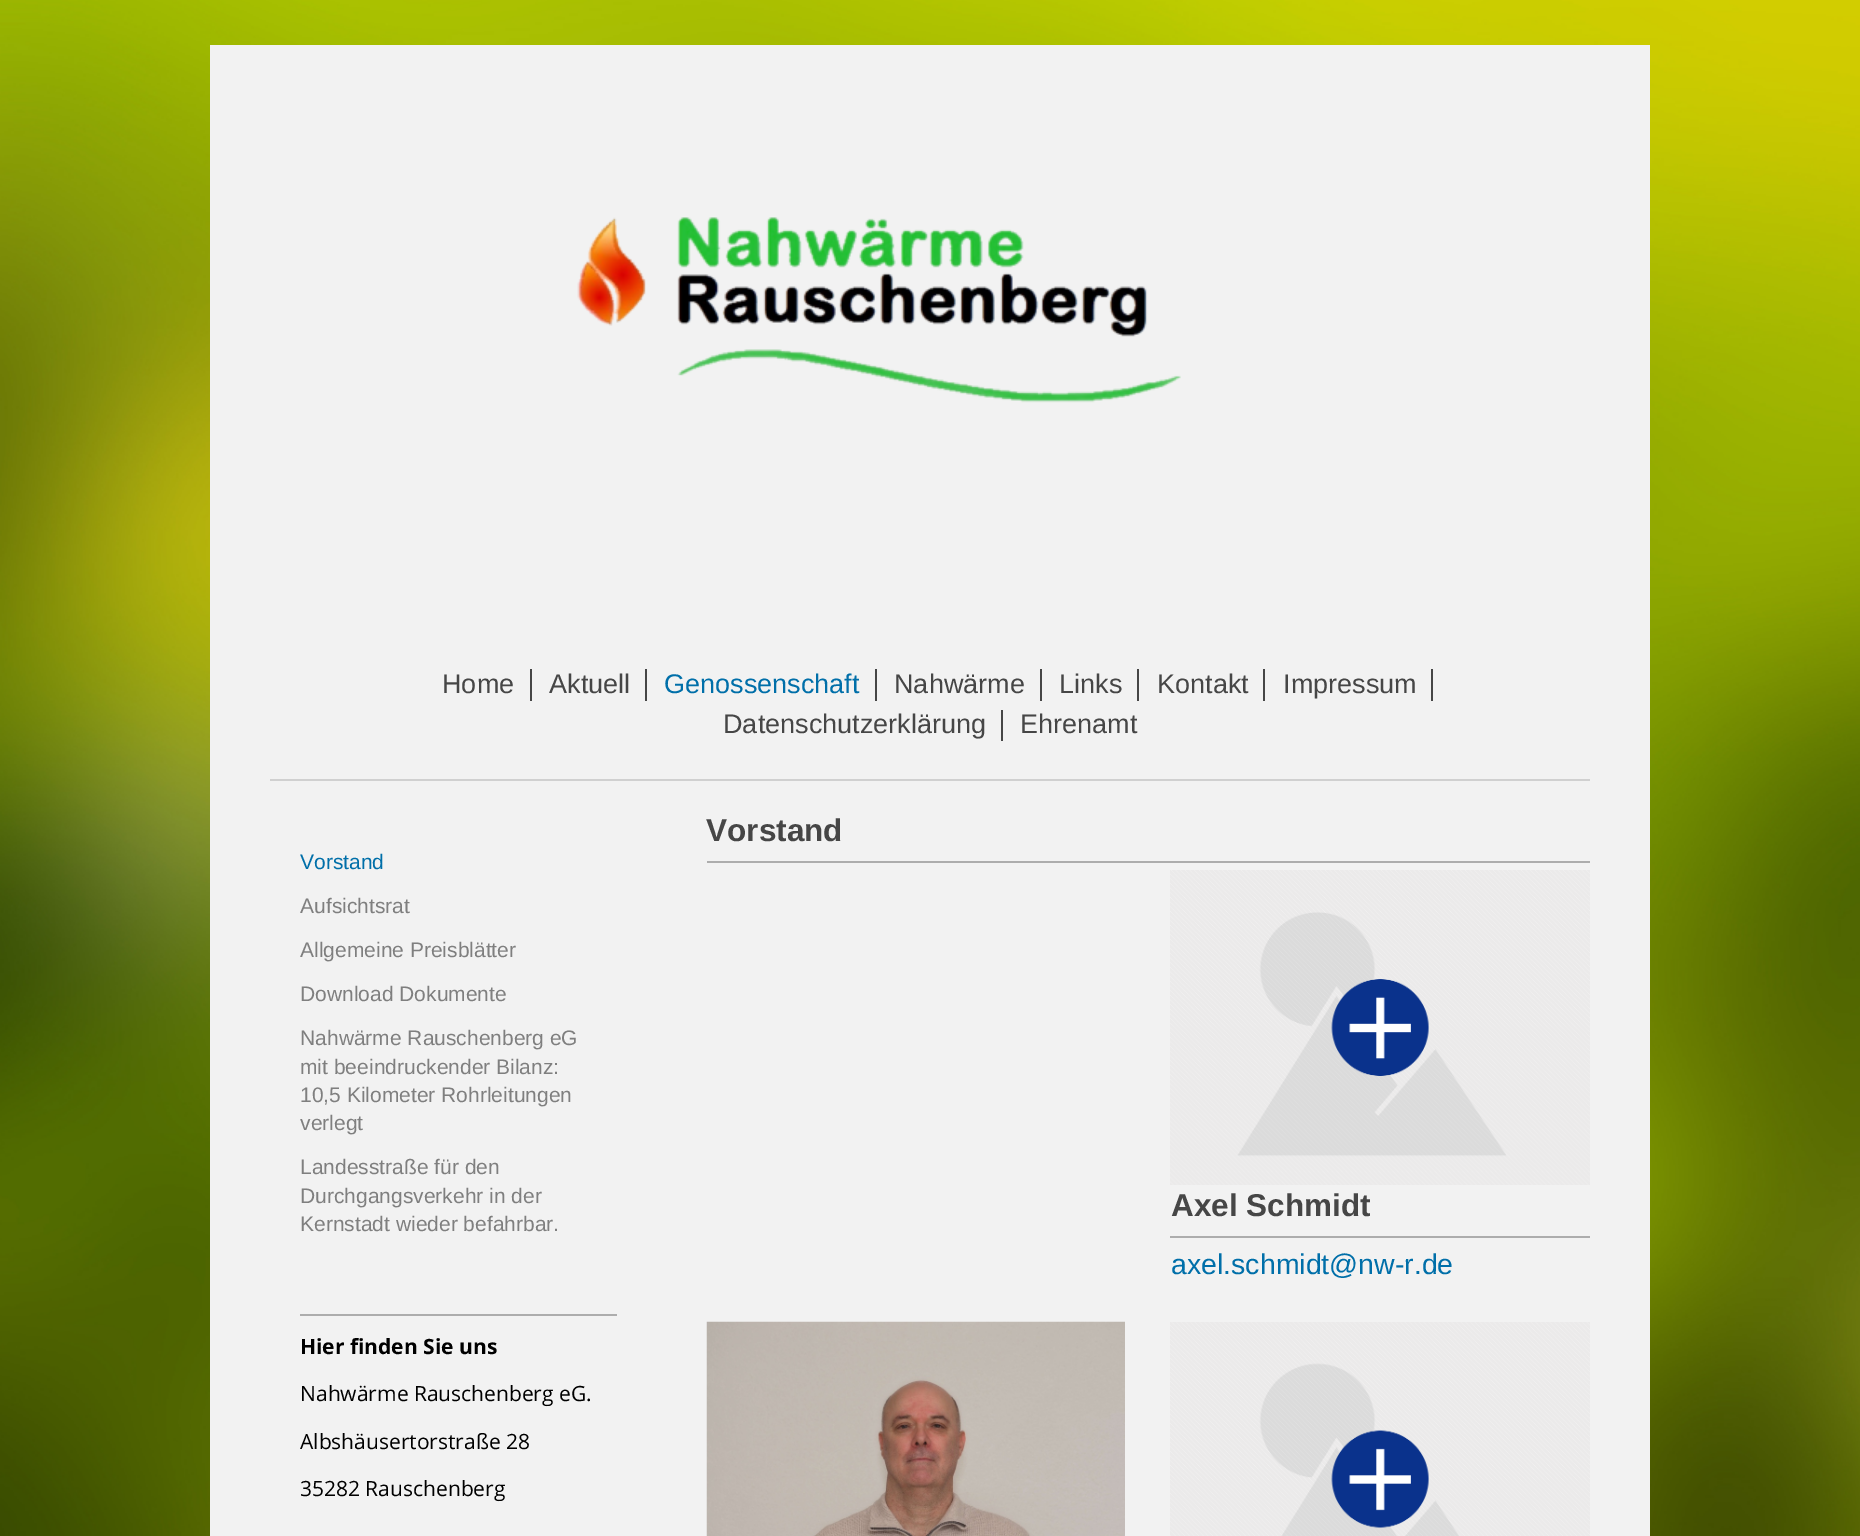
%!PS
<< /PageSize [1860 1536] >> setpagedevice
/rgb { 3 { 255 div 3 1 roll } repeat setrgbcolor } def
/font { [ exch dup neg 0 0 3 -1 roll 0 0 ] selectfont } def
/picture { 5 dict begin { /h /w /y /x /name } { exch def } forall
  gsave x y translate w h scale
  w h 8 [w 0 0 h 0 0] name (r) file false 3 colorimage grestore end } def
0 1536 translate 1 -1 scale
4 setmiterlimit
255 255 255 rgb
0 0 1860 1536 rectfill
(img/1.rgb) 0 0 1860 1536 picture
242 242 242 rgb
210 45 1440 1491 rectfill
(img/2.rgb) 577 217 604 186 picture
[
  [270 779 1320 2 208 208 208]
  [530 669 2 32 70 70 70]
  [645 669 2 32 70 70 70]
  [875 669 2 32 70 70 70]
  [1040 669 2 32 70 70 70]
  [1137 669 2 32 70 70 70]
  [1263 669 2 32 70 70 70]
  [1431 669 2 32 70 70 70]
  [1001 710 2 31 70 70 70]
  [300 1314 317 2 173 173 173]
  [707 861 883 2 173 173 173]
] { aload pop rgb rectfill } forall
(img/3.rgb) 1170 870 420 315 picture
1170 1236 420 2 rectfill
(img/4.rgb) 706 1321 419 215 picture
(img/5.rgb) 1170 1322 420 214 picture
/LiberationSans-Regular 27 font
70 70 70 rgb
442 693 moveto (Home) show
549 693 moveto (Aktuell) show
0 111 169 rgb
664 693 moveto (Genossenschaft) show
70 70 70 rgb
[
  [(Nahwärme) 894 693]
  [(Links) 1059 693]
  [(Kontakt) 1157 693]
  [(Impressum) 1283 693]
  [(Datenschutzerklärung) 723 733]
  [(Ehrenamt) 1020 733]
] { aload pop moveto show } forall
/LiberationSans-Regular 21 font
0 111 169 rgb
300 869 moveto (Vorstand) show
127 127 127 rgb
[
  [(Aufsichtsrat) 300 913]
  [(Allgemeine Preisblätter) 300 957]
  [(Download Dokumente) 300 1001]
  [(Nahwärme Rauschenberg eG) 300 1045]
  [(mit beeindruckender Bilanz:) 300 1074]
  [(10,5 Kilometer Rohrleitungen) 300 1102]
  [(verlegt) 300 1130]
  [(Landesstraße für den) 300 1174]
  [(Durchgangsverkehr in der) 300 1203]
  [(Kernstadt wieder befahrbar.) 300 1231]
] { aload pop moveto show } forall
/OpenSans-Bold 21 font
0 0 0 rgb
300 1354 moveto (Hier finden Sie uns) show
/OpenSans-Regular 21 font
[
  [(Nahwärme Rauschenberg eG.) 300 1401]
  [(Albshäusertorstraße 28) 300 1449]
  [(35282 Rauschenberg) 300 1496]
] { aload pop moveto show } forall
/LiberationSans-Bold 31.5 font
70 70 70 rgb
706 841 moveto (Vorstand) show
1171 1216 moveto (Axel Schmidt) show
/LiberationSans-Regular 28.5 font
0 111 169 rgb
1171 1274 moveto (axel.schmidt@nw-r.de) show
showpage
